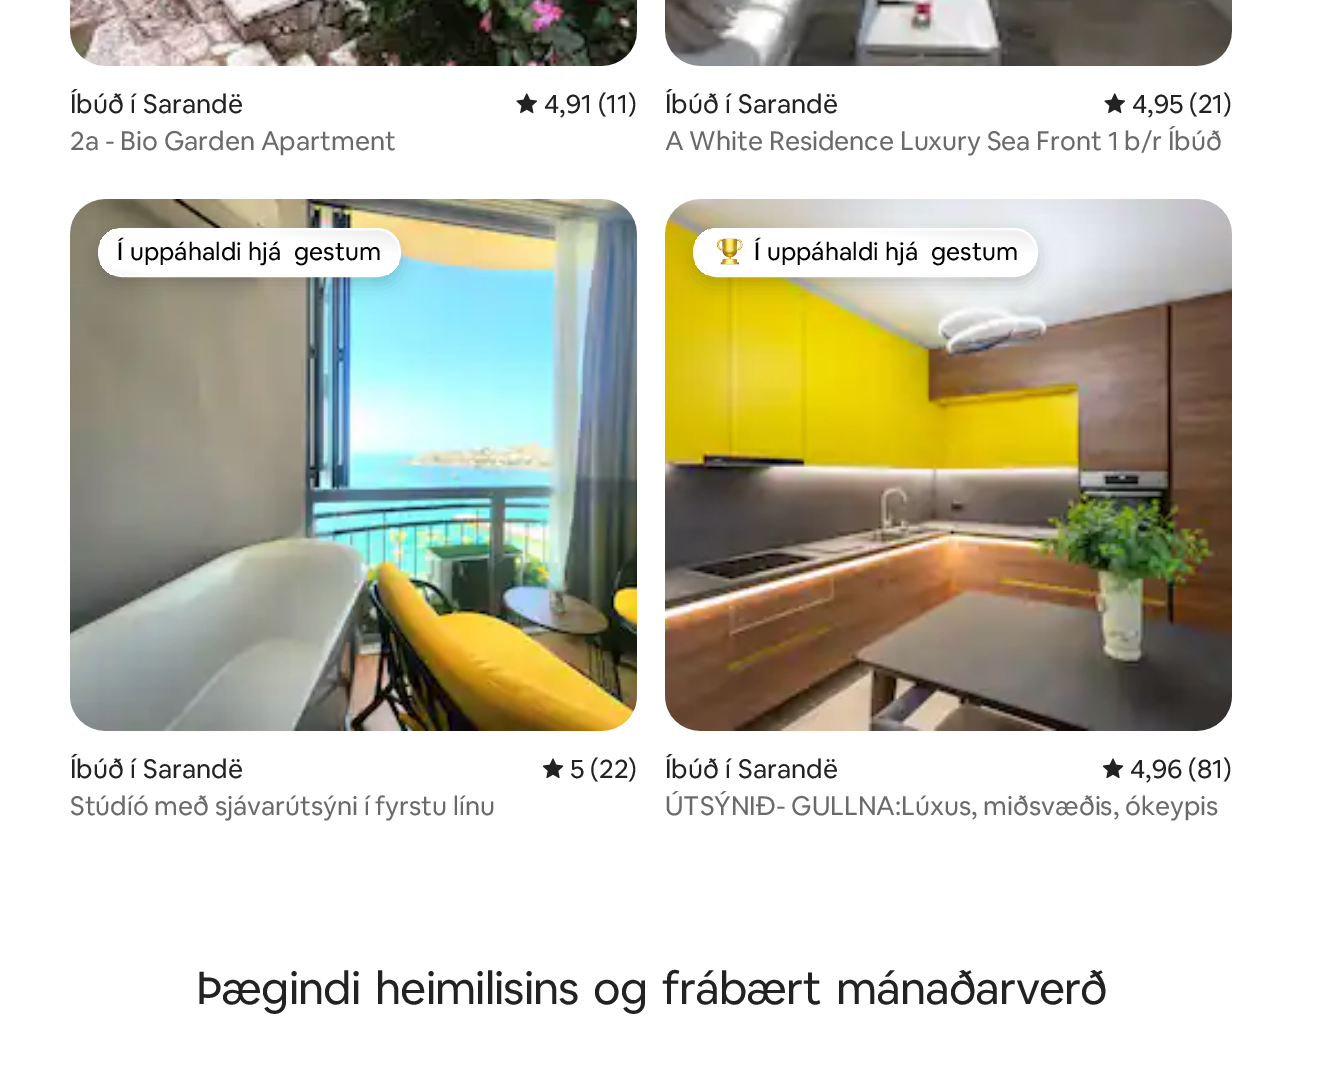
%!PS
<< /PageSize [1328 1066] /PageUsesTransparency true >> setpagedevice
/rgb { 3 { 255 div 3 1 roll } repeat setrgbcolor } def
/font { [ exch dup neg 0 0 3 -1 roll 0 0 ] selectfont } def
/alpha { dup .setfillconstantalpha .setstrokeconstantalpha } def
/roundrect { 5 dict begin { /r /h /w /y /x } { exch def } forall
  x r add y moveto x w add y 2 copy h add r arct x w add y h add x 1 index r arct
  x y h add x y r arct x y 2 copy exch w add exch r arct closepath end } def
/shadow { 12 dict begin { /a /b /q /h /w /y /x } { exch def } forall gsave /was 0 def
  9 -2 -9 { dup b mul 4 div /e exch def 1 sub .425 mul 2.718 exch exp 1 add a .99 .min exch div /now exch def
    1 1 now sub 1 was sub div sub alpha /was now def
    w h .min e 2 mul add 0 gt { x e sub y e sub w e 2 mul add h e 2 mul add
      q e add b .6 mul add w h .min 2 div e add .min 0 .max roundrect fill } if } for grestore end } def
/picture { 5 dict begin { /h /w /y /x /name } { exch def } forall
  gsave x y translate w h scale
  w h 8 [w 0 0 h 0 0] name (r) file false 3 colorimage grestore end } def
0 .pushpdf14devicefilter
0 1066 translate 1 -1 scale
4 setmiterlimit
255 255 255 rgb
0 0 1328 1066 rectfill
(img/1.rgb) 70 0 567 66 picture
(img/2.rgb) 516 93 21 21 picture
(img/3.rgb) 665 0 567 66 picture
(img/2.rgb) 1104 93 21 21 picture
(img/4.rgb) 70 199 567 532 picture
0 0 0 rgb
98 235 303 49 24.5 9 0.16 shadow
gsave
98 228 303 49 24.5 roundrect clip newpath
gsave 100 229 moveto 399 229 lineto 399 275 lineto 100 275 lineto closepath clip newpath
<< /ShadingType 2 /ColorSpace /DeviceRGB /Coords [243 296 256 208] /Extend [true true] /Function << /FunctionType 3 /Domain [0 1] /Functions [<< /FunctionType 2 /Domain [0 1] /C0 [0.945 0.945 0.945] /C1 [1 1 1] /N 1 >> << /FunctionType 2 /Domain [0 1] /C0 [1 1 1] /C1 [1 1 1] /N 1 >> << /FunctionType 2 /Domain [0 1] /C0 [1 1 1] /C1 [0.937 0.937 0.937] /N 1 >> << /FunctionType 2 /Domain [0 1] /C0 [0.937 0.937 0.937] /C1 [0.937 0.937 0.937] /N 1 >>] /Bounds [0.11 0.7 0.94] /Encode [0 1 0 1 0 1 0 1] >> >> shfill grestore
grestore
255 255 255 rgb
2 setlinewidth
99 229 301 47 23.5 roundrect stroke
(img/5.rgb) 543 758 21 21 picture
(img/6.rgb) 665 199 567 532 picture
0 0 0 rgb
693 235 345 49 24.5 9 0.16 shadow
gsave
693 228 345 49 24.5 roundrect clip newpath
gsave 695 229 moveto 1036 229 lineto 1036 275 lineto 695 275 lineto closepath clip newpath
<< /ShadingType 2 /ColorSpace /DeviceRGB /Coords [859 297 871 207] /Extend [true true] /Function << /FunctionType 3 /Domain [0 1] /Functions [<< /FunctionType 2 /Domain [0 1] /C0 [0.945 0.945 0.945] /C1 [1 1 1] /N 1 >> << /FunctionType 2 /Domain [0 1] /C0 [1 1 1] /C1 [1 1 1] /N 1 >> << /FunctionType 2 /Domain [0 1] /C0 [1 1 1] /C1 [0.937 0.937 0.937] /N 1 >> << /FunctionType 2 /Domain [0 1] /C0 [0.937 0.937 0.937] /C1 [0.937 0.937 0.937] /N 1 >>] /Bounds [0.11 0.7 0.94] /Encode [0 1 0 1 0 1 0 1] >> >> shfill grestore
grestore
255 255 255 rgb
694 229 343 47 23.5 roundrect stroke
(img/7.rgb) 708 228 35 46 picture
(img/5.rgb) 1103 758 21 21 picture
/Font-Regular 26.25 font
34 34 34 rgb
70 113 moveto 1 0 32 (Íbúð í Sarandë) widthshow
544 113 moveto (4,91 \(11\)) show
106 106 106 rgb
70 150 moveto (2a - Bio Garden Apartment) show
34 34 34 rgb
665 113 moveto 1 0 32 (Íbúð í Sarandë) widthshow
1132 113 moveto (4,95 \(21\)) show
106 106 106 rgb
665 150 moveto (A White Residence Luxury Sea Front 1 b/r Íbúð) show
/Font-Regular 24.5 font
0 0 0 rgb
117 260 moveto 1.5 0 32 (Í uppáhaldi hjá) widthshow
294 260 moveto 1.5 0 32 (gestum) widthshow
/Font-Regular 26.25 font
34 34 34 rgb
70 778 moveto 1 0 32 (Íbúð í Sarandë) widthshow
570 778 moveto (5 \(22\)) show
106 106 106 rgb
70 815 moveto (Stúdíó með sjávarútsýni í fyrstu línu) show
/Font-Regular 24.5 font
0 0 0 rgb
754 260 moveto 1.5 0 32 (Í uppáhaldi hjá) widthshow
931 260 moveto 1.5 0 32 (gestum) widthshow
/Font-Regular 26.25 font
34 34 34 rgb
665 778 moveto 1 0 32 (Íbúð í Sarandë) widthshow
1130 778 moveto (4,96 \(81\)) show
106 106 106 rgb
665 815 moveto (ÚTSÝNIÐ- GULLNA:Lúxus, miðsvæðis, ókeypis) show
/Font-Regular 45.5 font
34 34 34 rgb
196 1004 moveto 6 0 32 -0.9 0 (Þægindi heimilisins og frábært mánaðarverð) awidthshow
.poppdf14devicefilter showpage
